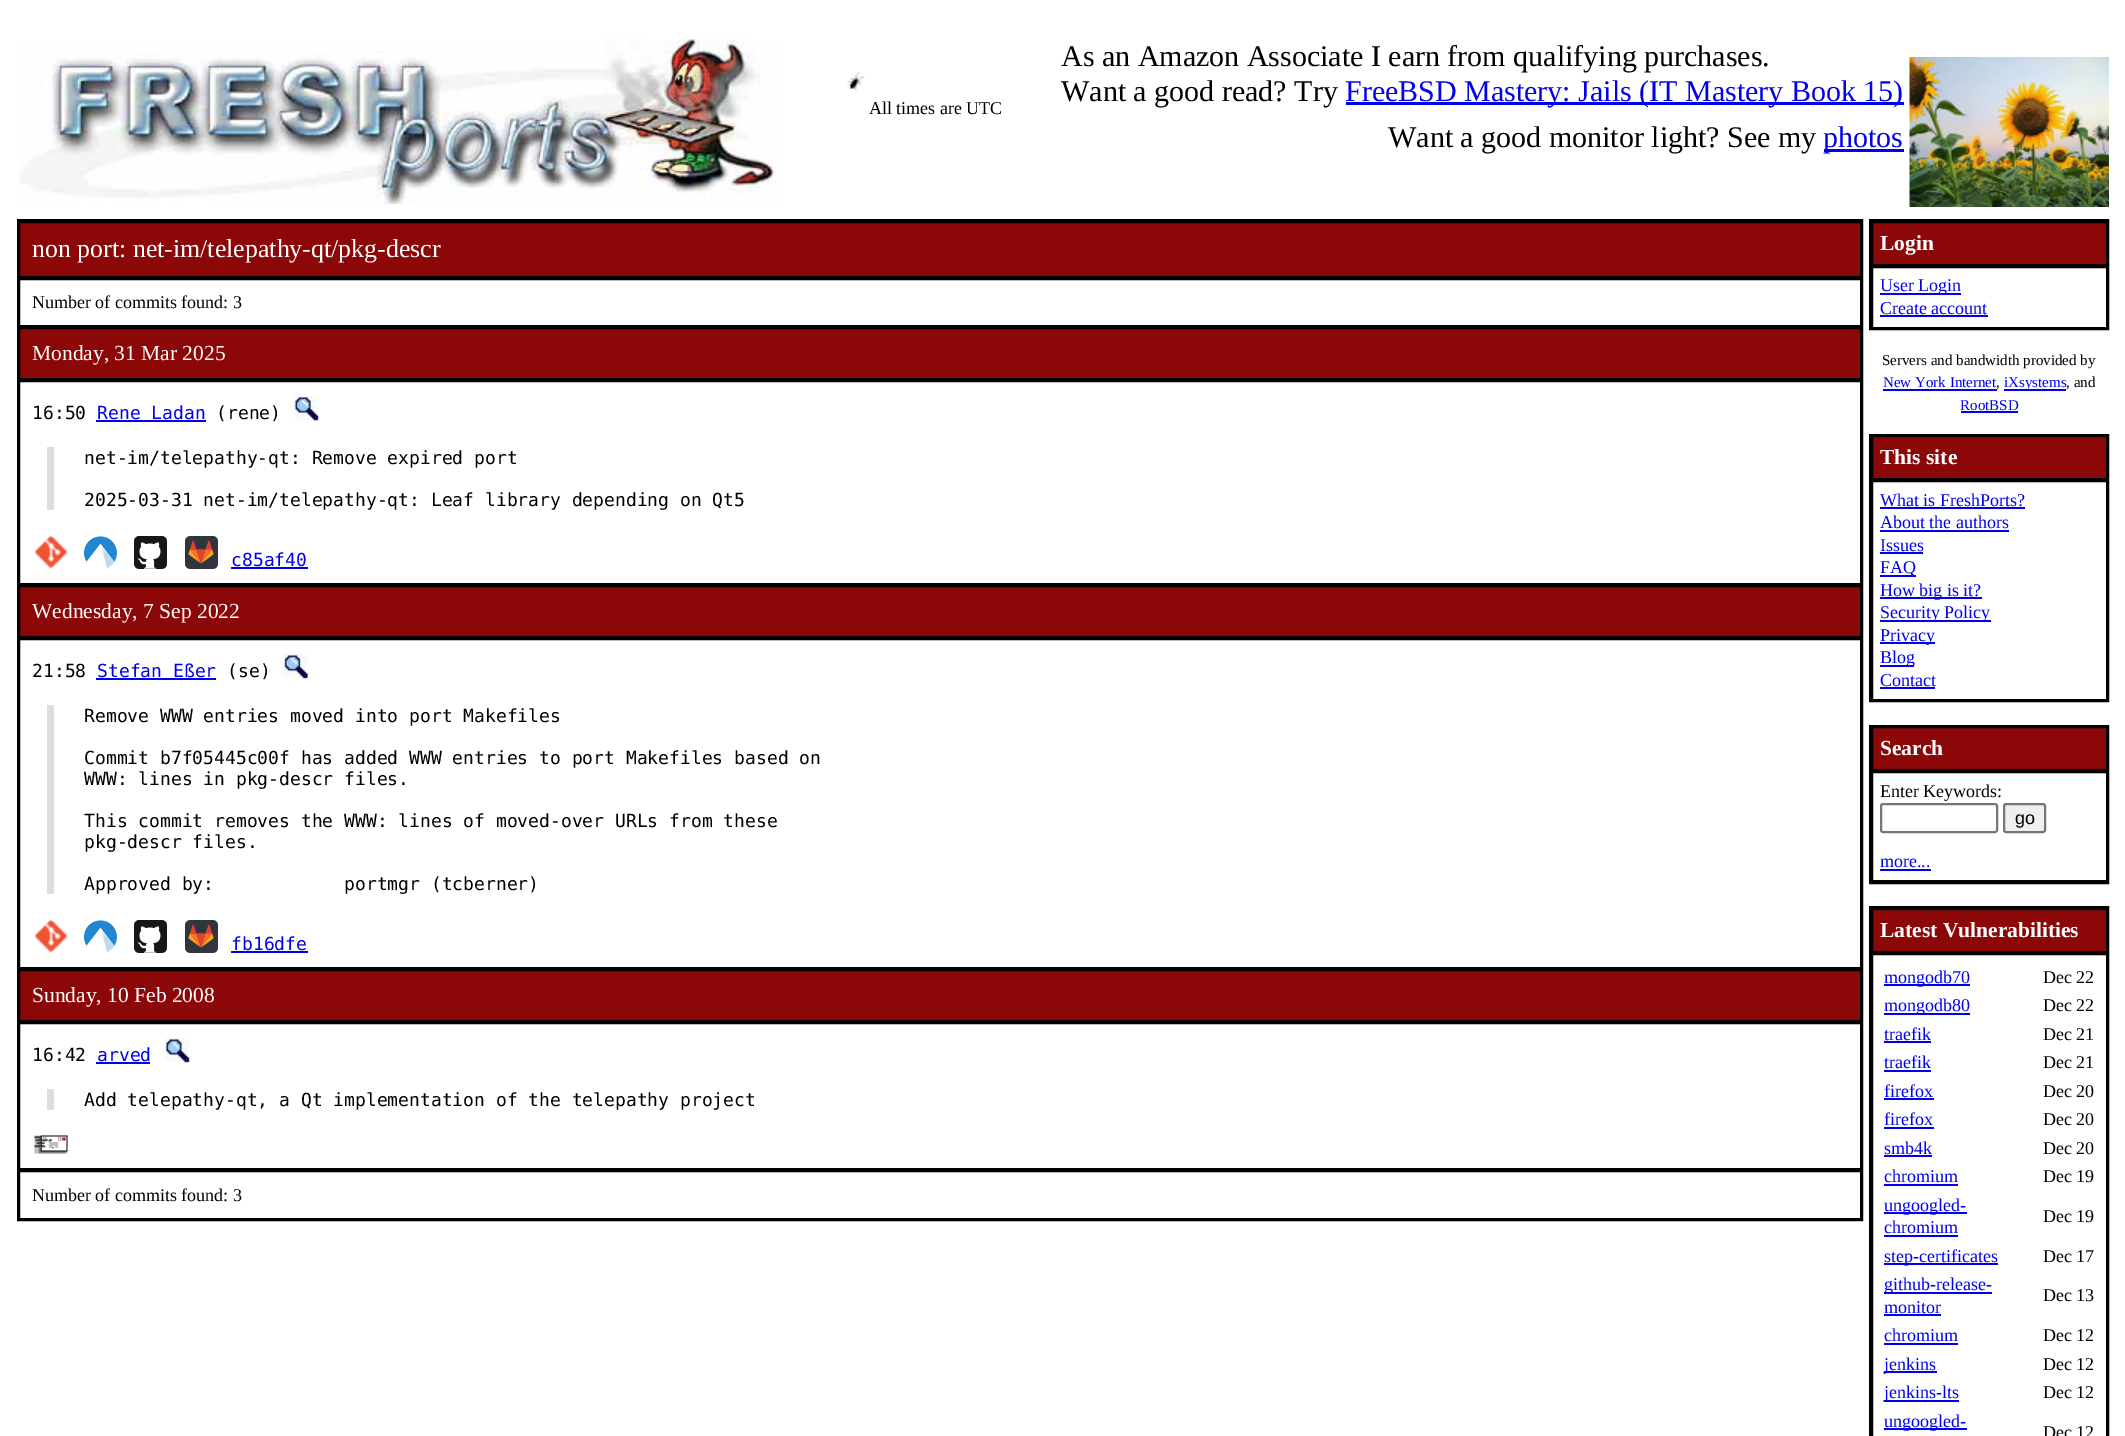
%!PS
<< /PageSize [2125 1436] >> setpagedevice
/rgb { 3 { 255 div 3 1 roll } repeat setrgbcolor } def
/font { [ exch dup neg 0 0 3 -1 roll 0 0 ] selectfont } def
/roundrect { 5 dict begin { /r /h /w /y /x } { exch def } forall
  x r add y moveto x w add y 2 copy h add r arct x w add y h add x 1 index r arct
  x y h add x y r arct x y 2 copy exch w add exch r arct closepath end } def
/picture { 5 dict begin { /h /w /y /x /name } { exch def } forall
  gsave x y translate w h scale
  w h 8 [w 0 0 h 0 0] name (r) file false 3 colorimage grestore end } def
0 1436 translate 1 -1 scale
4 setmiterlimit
255 255 255 rgb
0 0 2125 1436 rectfill
(img/1.rgb) 19 39 765 165 picture
(img/2.rgb) 847 71 18 20 picture
0 0 238 rgb
1346 102 558 3 rectfill
1824 149 80 3 rectfill
(img/3.rgb) 1909 57 200 150 picture
0 0 0 rgb
2 setlinewidth
18 220 1844 1000 rectstroke
140 7 7 rgb
19 222 moveto 1861 222 lineto 1861 277 lineto 19 277 lineto closepath gsave fill grestore
0 0 0 rgb
stroke
19 279 1842 47 rectstroke
140 7 7 rgb
19 328 moveto 1861 328 lineto 1861 379 lineto 19 379 lineto closepath gsave fill grestore
0 0 0 rgb
stroke
19 381 1842 203 rectstroke
0 0 238 rgb
96 420 110 2 rectfill
(img/4.rgb) 294 396 26 25 picture
221 221 221 rgb
47 447 7 63 rectfill
(img/5.rgb) 34 535 34 34 picture
(img/6.rgb) 84 536 33 32 picture
(img/7.rgb) 134 536 33 33 picture
(img/8.rgb) 185 536 33 33 picture
0 0 238 rgb
231 567 77 2 rectfill
140 7 7 rgb
19 586 moveto 1861 586 lineto 1861 637 lineto 19 637 lineto closepath gsave fill grestore
0 0 0 rgb
stroke
19 639 1842 329 rectstroke
0 0 238 rgb
96 678 120 2 rectfill
(img/9.rgb) 283 654 26 25 picture
221 221 221 rgb
47 705 7 189 rectfill
(img/5.rgb) 34 919 34 34 picture
(img/6.rgb) 84 920 33 32 picture
(img/7.rgb) 134 920 33 33 picture
(img/8.rgb) 185 920 33 33 picture
0 0 238 rgb
231 951 77 2 rectfill
140 7 7 rgb
19 970 moveto 1861 970 lineto 1861 1021 lineto 19 1021 lineto closepath gsave fill grestore
0 0 0 rgb
stroke
19 1023 1842 146 rectstroke
0 0 238 rgb
96 1062 54 2 rectfill
(img/10.rgb) 165 1038 26 25 picture
221 221 221 rgb
47 1089 7 21 rectfill
(img/11.rgb) 34 1135 34 19 picture
0 0 0 rgb
19 1171 1842 48 rectstroke
1870 220 238 109 rectstroke
140 7 7 rgb
1872 222 moveto 2107 222 lineto 2107 265 lineto 1872 265 lineto closepath gsave fill grestore
0 0 0 rgb
stroke
1872 267 235 61 rectstroke
[
  [1880 293 81 2 0 0 238]
  [1880 315 108 2 0 0 238]
  [1883 389 114 2 0 0 238]
  [2004 389 62 2 0 0 238]
  [1961 411 57 2 0 0 238]
] { aload pop rgb rectfill } forall
0 0 0 rgb
1870 435 238 266 rectstroke
140 7 7 rgb
1872 436 moveto 2107 436 lineto 2107 479 lineto 1872 479 lineto closepath gsave fill grestore
0 0 0 rgb
stroke
1872 481 235 219 rectstroke
[
  [1880 507 145 2 0 0 238]
  [1880 530 129 2 0 0 238]
  [1880 552 43 2 0 0 238]
  [1880 575 36 2 0 0 238]
  [1880 597 102 2 0 0 238]
  [1880 620 111 2 0 0 238]
  [1880 642 55 2 0 0 238]
  [1880 665 34 2 0 0 238]
  [1880 687 55 2 0 0 238]
] { aload pop rgb rectfill } forall
0 0 0 rgb
1870 726 238 157 rectstroke
140 7 7 rgb
1872 727 moveto 2107 727 lineto 2107 770 lineto 1872 770 lineto closepath gsave fill grestore
0 0 0 rgb
stroke
1872 772 235 109 rectstroke
118 118 118 rgb
1881 804 116 28 2 roundrect stroke
239 239 239 rgb
2004 804 41 28 2 roundrect gsave fill grestore
118 118 118 rgb
stroke
0 0 238 rgb
1880 869 51 2 rectfill
0 0 0 rgb
1870 907 238 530 rectstroke
140 7 7 rgb
1872 909 moveto 2107 909 lineto 2107 952 lineto 1872 952 lineto closepath gsave fill grestore
0 0 0 rgb
stroke
1872 954 235 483 rectstroke
[
  [1884 984 86 2 0 0 238]
  [1884 1013 86 2 0 0 238]
  [1884 1041 47 2 0 0 238]
  [1884 1070 47 2 0 0 238]
  [1884 1098 50 2 0 0 238]
  [1884 1127 50 2 0 0 238]
  [1884 1155 48 2 0 0 238]
  [1884 1184 74 2 0 0 238]
  [1884 1212 83 2 0 0 238]
  [1884 1235 74 2 0 0 238]
  [1884 1263 114 2 0 0 238]
  [1884 1292 108 2 0 0 238]
  [1884 1314 57 2 0 0 238]
  [1884 1343 74 2 0 0 238]
  [1884 1371 53 2 0 0 238]
  [1884 1400 75 2 0 0 238]
  [1884 1428 83 2 0 0 238]
] { aload pop rgb rectfill } forall
/LiberationSerif-Regular 30 font
0 0 0 rgb
1061 66 moveto (As an Amazon Associate I earn from qualifying purchases.) show
1061 101 moveto (Want a good read? Try) show
0 0 238 rgb
1345 101 moveto (FreeBSD Mastery: Jails \(IT Mastery Book 15\)) show
/LiberationSerif-Regular 18 font
0 0 0 rgb
869 114 moveto (All times are UTC) show
/LiberationSerif-Regular 30 font
1388 147 moveto (Want a good monitor light? See my) show
0 0 238 rgb
1823 147 moveto (photos) show
/LiberationSerif-Regular 25.9 font
255 255 255 rgb
32 257 moveto (non port: net-im/telepathy-qt/pkg-descr) show
/LiberationSerif-Regular 18 font
0 0 0 rgb
32 308 moveto (Number of commits found: 3) show
/LiberationSerif-Regular 21.5 font
255 255 255 rgb
32 360 moveto (Monday, 31 Mar 2025) show
/DejaVuSansMono-Regular 18 font
0 0 0 rgb
32 419 moveto (16:50) show
0 0 238 rgb
97 419 moveto (Rene Ladan) show
0 0 0 rgb
[
  [(\(rene\)) 216 419]
  [(net-im/telepathy-qt: Remove expired port) 84 464]
  [(2025-03-31 net-im/telepathy-qt: Leaf library depending on Qt5) 84 506]
] { aload pop moveto show } forall
0 0 238 rgb
231 566 moveto (c85af40) show
/LiberationSerif-Regular 21.5 font
255 255 255 rgb
32 618 moveto (Wednesday, 7 Sep 2022) show
/DejaVuSansMono-Regular 18 font
0 0 0 rgb
32 677 moveto (21:58) show
0 0 238 rgb
97 677 moveto (Stefan Eßer) show
0 0 0 rgb
[
  [(\(se\)) 227 677]
  [(Remove WWW entries moved into port Makefiles) 84 722]
  [(Commit b7f05445c00f has added WWW entries to port Makefiles based on) 84 764]
  [(WWW: lines in pkg-descr files.) 84 785]
  [(This commit removes the WWW: lines of moved-over URLs from these) 84 827]
  [(pkg-descr files.) 84 848]
  [(Approved by:) 84 890]
  [(portmgr \(tcberner\)) 344 890]
] { aload pop moveto show } forall
0 0 238 rgb
231 950 moveto (fb16dfe) show
/LiberationSerif-Regular 21.5 font
255 255 255 rgb
32 1002 moveto (Sunday, 10 Feb 2008) show
/DejaVuSansMono-Regular 18 font
0 0 0 rgb
32 1061 moveto (16:42) show
0 0 238 rgb
97 1061 moveto (arved) show
0 0 0 rgb
84 1106 moveto (Add telepathy-qt, a Qt implementation of the telepathy project) show
/LiberationSerif-Regular 18 font
32 1201 moveto (Number of commits found: 3) show
/LiberationSerif-Bold 21.5 font
255 255 255 rgb
1880 250 moveto (Login) show
/LiberationSerif-Regular 18 font
0 0 238 rgb
1880 291 moveto (User Login) show
1880 314 moveto (Create account) show
/LiberationSerif-Regular 15 font
0 0 0 rgb
1882 365 moveto (Servers and bandwidth provided by) show
0 0 238 rgb
1883 387 moveto (New York Internet) show
0 0 0 rgb
1996 387 moveto (,) show
0 0 238 rgb
2004 387 moveto (iXsystems) show
0 0 0 rgb
2066 387 moveto (, and) show
0 0 238 rgb
1960 410 moveto (RootBSD) show
/LiberationSerif-Bold 21.5 font
255 255 255 rgb
1880 464 moveto (This site) show
/LiberationSerif-Regular 18 font
0 0 238 rgb
[
  [(What is FreshPorts?) 1880 506]
  [(About the authors) 1880 528]
  [(Issues) 1880 551]
  [(FAQ) 1880 573]
  [(How big is it?) 1880 596]
  [(Security Policy) 1880 618]
  [(Privacy) 1880 641]
  [(Blog) 1880 663]
  [(Contact) 1880 686]
] { aload pop moveto show } forall
/LiberationSerif-Bold 21.5 font
255 255 255 rgb
1880 755 moveto (Search) show
/LiberationSerif-Regular 18 font
0 0 0 rgb
1880 797 moveto (Enter Keywords:) show
/LiberationSans-Regular 18 font
2015 824 moveto (go) show
/LiberationSerif-Regular 18 font
0 0 238 rgb
1880 867 moveto (more...) show
/LiberationSerif-Bold 21.5 font
255 255 255 rgb
1880 937 moveto (Latest Vulnerabilities) show
/LiberationSerif-Regular 18 font
0 0 238 rgb
1884 983 moveto (mongodb70) show
0 0 0 rgb
2043 983 moveto (Dec 22) show
0 0 238 rgb
1884 1011 moveto (mongodb80) show
0 0 0 rgb
2043 1011 moveto (Dec 22) show
0 0 238 rgb
1884 1040 moveto (traefik) show
0 0 0 rgb
2043 1040 moveto (Dec 21) show
0 0 238 rgb
1884 1068 moveto (traefik) show
0 0 0 rgb
2043 1068 moveto (Dec 21) show
0 0 238 rgb
1884 1097 moveto (firefox) show
0 0 0 rgb
2043 1097 moveto (Dec 20) show
0 0 238 rgb
1884 1125 moveto (firefox) show
0 0 0 rgb
2043 1125 moveto (Dec 20) show
0 0 238 rgb
1884 1154 moveto (smb4k) show
0 0 0 rgb
2043 1154 moveto (Dec 20) show
0 0 238 rgb
1884 1182 moveto (chromium) show
0 0 0 rgb
2043 1182 moveto (Dec 19) show
0 0 238 rgb
1884 1211 moveto (ungoogled-) show
1884 1233 moveto (chromium) show
0 0 0 rgb
2043 1222 moveto (Dec 19) show
0 0 238 rgb
1884 1262 moveto (step-certificates) show
0 0 0 rgb
2043 1262 moveto (Dec 17) show
0 0 238 rgb
1884 1290 moveto (github-release-) show
1884 1313 moveto (monitor) show
0 0 0 rgb
2043 1301 moveto (Dec 13) show
0 0 238 rgb
1884 1341 moveto (chromium) show
0 0 0 rgb
2043 1341 moveto (Dec 12) show
0 0 238 rgb
1884 1370 moveto (jenkins) show
0 0 0 rgb
2043 1370 moveto (Dec 12) show
0 0 238 rgb
1884 1398 moveto (jenkins-lts) show
0 0 0 rgb
2043 1398 moveto (Dec 12) show
0 0 238 rgb
1884 1427 moveto (ungoogled-) show
0 0 0 rgb
2043 1438 moveto (Dec 12) show
showpage
